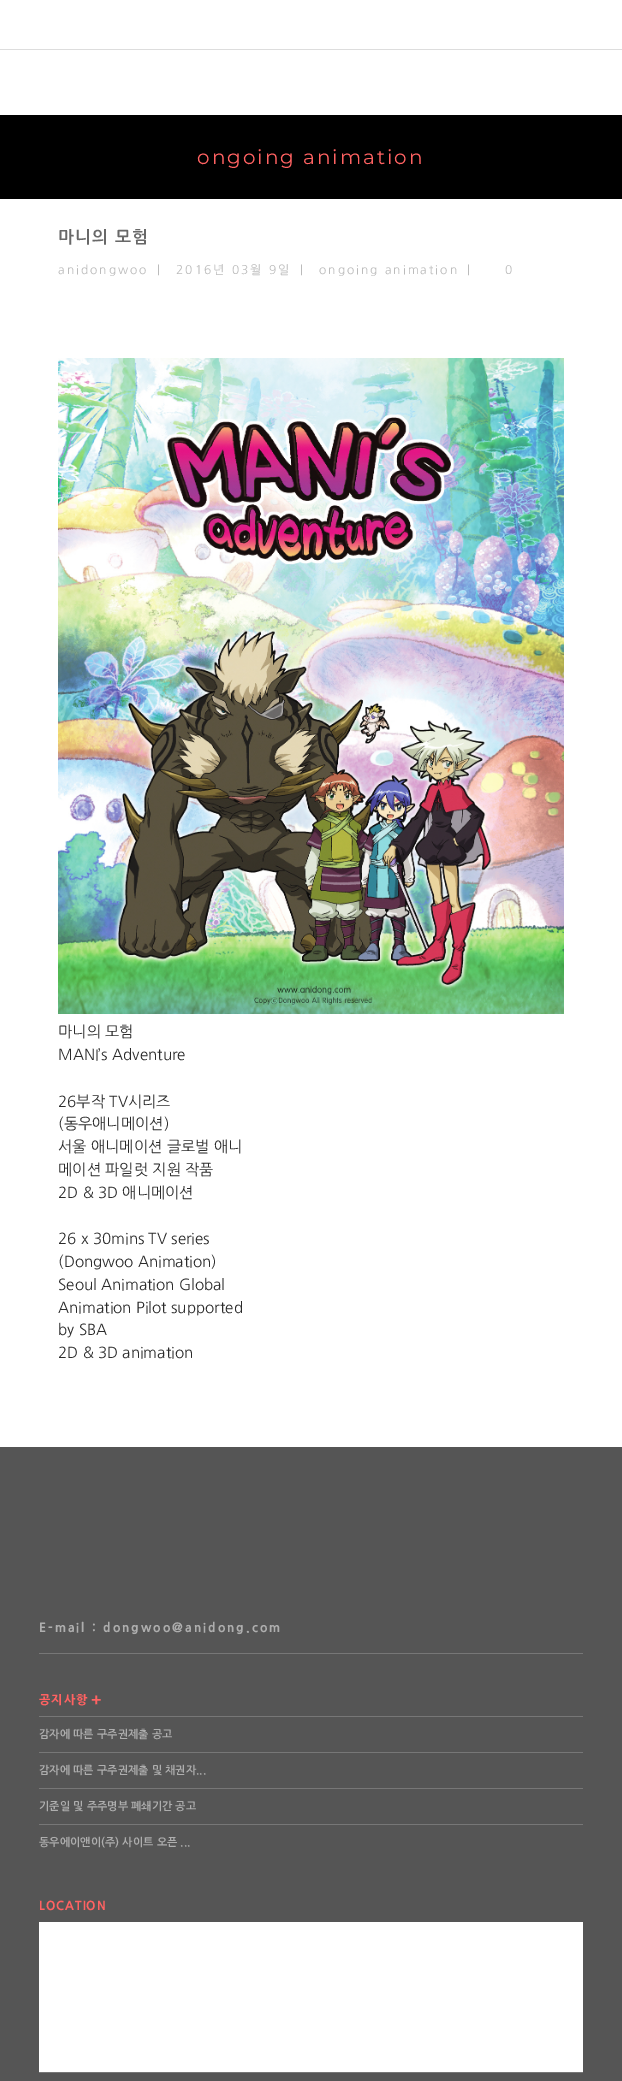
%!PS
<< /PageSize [622 2081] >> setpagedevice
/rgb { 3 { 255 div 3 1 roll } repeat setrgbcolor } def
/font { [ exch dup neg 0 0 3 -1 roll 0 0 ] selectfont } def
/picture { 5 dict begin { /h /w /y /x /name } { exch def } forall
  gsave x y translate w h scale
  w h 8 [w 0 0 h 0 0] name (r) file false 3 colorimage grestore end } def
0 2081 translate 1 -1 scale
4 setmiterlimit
255 255 255 rgb
0 0 622 2081 rectfill
221 221 221 rgb
0 49 622 1 rectfill
0 0 0 rgb
0 115 622 84 rectfill
(img/1.rgb) 58 358 506 656 picture
[
  [0 1447 622 634 85 85 85]
  [39 1653 544 1 119 119 119]
  [39 1716 544 1 119 119 119]
  [39 1752 544 1 119 119 119]
  [39 1788 544 1 119 119 119]
  [39 1824 544 1 119 119 119]
  [39 2072 544 1 119 119 119]
  [39 1922 544 150 255 255 255]
] { aload pop rgb rectfill } forall
/Montserrat-Regular 20 font
255 98 98 rgb
197 164 moveto 2 0 (ongoing animation) ashow
gsave
58 229 506 17 rectclip
/NanumGothic-Bold 17 font
104 104 104 rgb
58 243 moveto 1 0 (마니의 모험) ashow
grestore
/NanumGothic-Regular 12 font
187 187 187 rgb
58 274 moveto 2 0 (anidongwoo) ashow
157 274 moveto 2 0 (|) ashow
176 274 moveto 2 0 (2016년 03월 9일) ashow
300 274 moveto 2 0 (|) ashow
319 274 moveto 2 0 (ongoing animation) ashow
467 274 moveto 2 0 (|) ashow
505 274 moveto 2 0 (0) ashow
/NanumGothic-Regular 15.2 font
43 43 43 rgb
[
  [(마니의 모험) 58 1037]
  [(MANI’s Adventure) 58 1060]
  [(26부작 TV시리즈) 58 1107]
  [(\(동우애니메이션\)) 58 1129]
  [(서울 애니메이션 글로벌 애니) 58 1152]
  [(메이션 파일럿 지원 작품) 58 1175]
  [(2D & 3D 애니메이션) 58 1198]
  [(26 x 30mins TV series) 58 1244]
  [(\(Dongwoo Animation\)) 58 1267]
  [(Seoul Animation Global) 58 1290]
  [(Animation Pilot supported) 58 1313]
  [(by SBA) 58 1335]
  [(2D & 3D animation) 58 1358]
] { aload pop moveto show } forall
/NanumGothic-ExtraBold 12.3 font
174 174 174 rgb
39 1632 moveto 2 0 (E-mail : dongwoo@anidong.com) ashow
gsave
39 1694 544 166 rectclip
/NanumGothic-ExtraBold 12 font
255 98 98 rgb
39 1704 moveto 1 0 (공지사항) ashow
grestore
/NanumGothic-ExtraBold 16 font
255 98 98 rgb
91 1706 moveto 1 0 (+) ashow
/NanumGothic-Bold 11 font
174 174 174 rgb
[
  [(감자에 따른 구주권제출 공고) 39 1738]
  [(감자에 따른 구주권제출 및 채권자...) 39 1774]
  [(기준일 및 주주명부 폐쇄기간 공고) 39 1810]
  [(동우에이앤이\(주\) 사이트 오픈 ...) 39 1846]
] { aload pop moveto show } forall
/NanumGothic-ExtraBold 12 font
255 98 98 rgb
39 1910 moveto 1 0 (LOCATION) ashow
showpage
